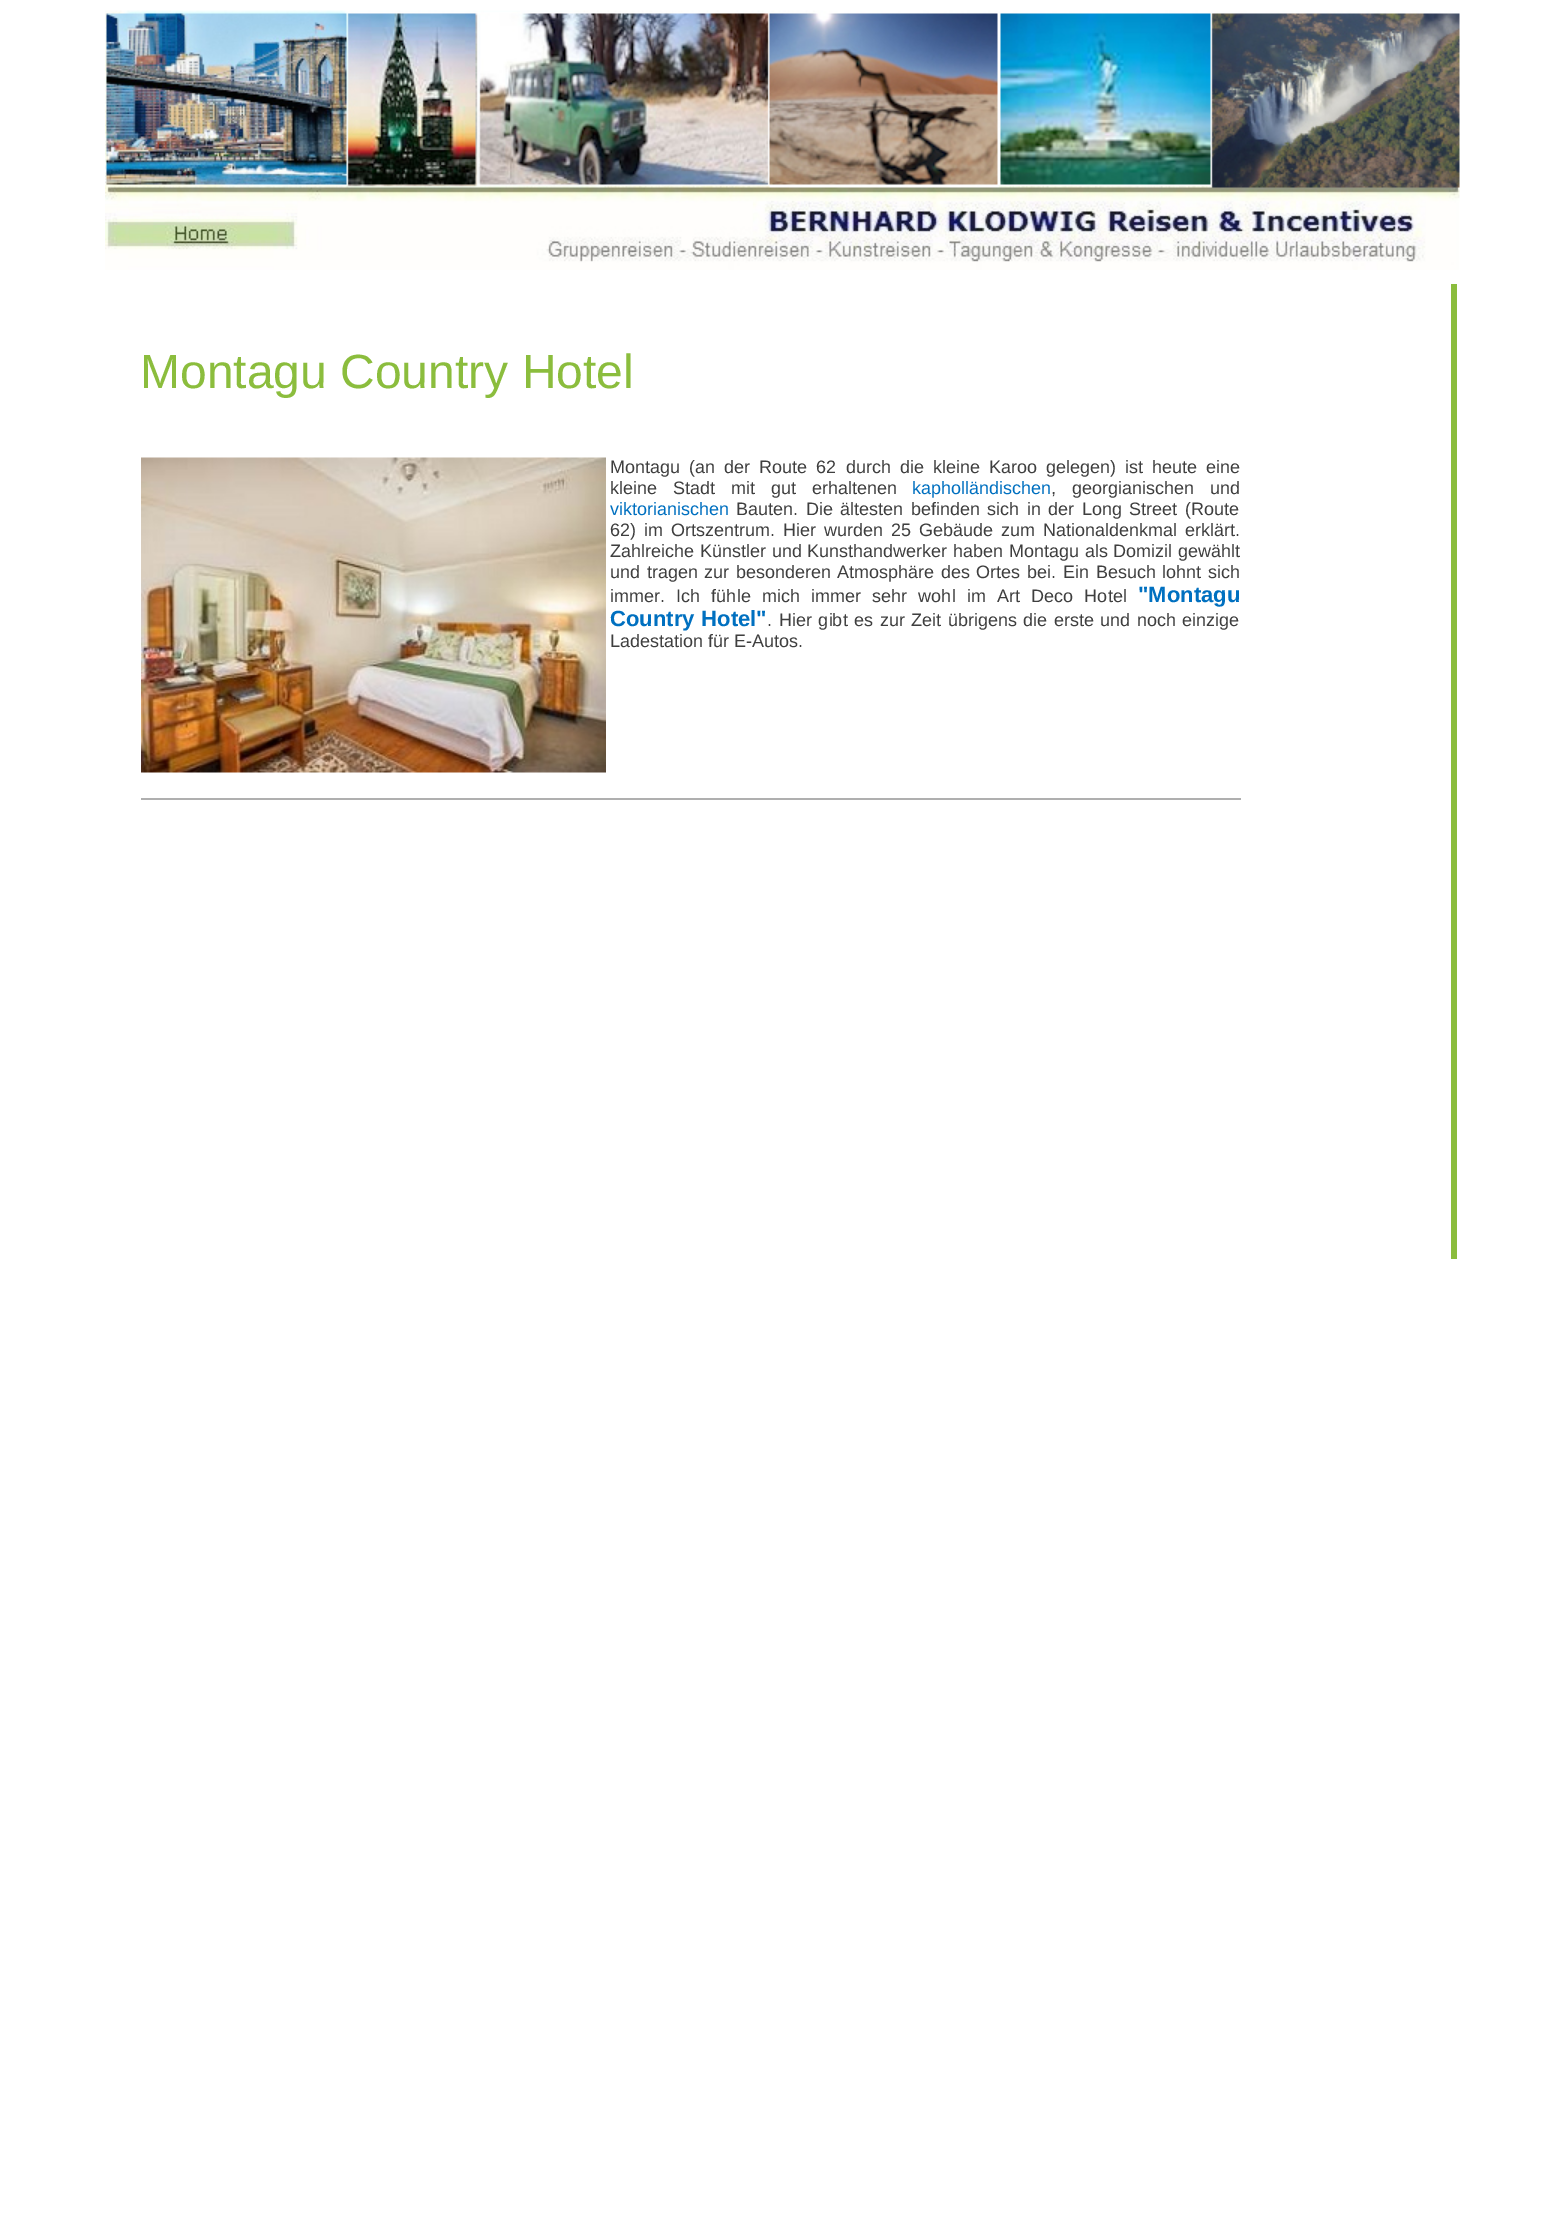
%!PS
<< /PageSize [1543 2221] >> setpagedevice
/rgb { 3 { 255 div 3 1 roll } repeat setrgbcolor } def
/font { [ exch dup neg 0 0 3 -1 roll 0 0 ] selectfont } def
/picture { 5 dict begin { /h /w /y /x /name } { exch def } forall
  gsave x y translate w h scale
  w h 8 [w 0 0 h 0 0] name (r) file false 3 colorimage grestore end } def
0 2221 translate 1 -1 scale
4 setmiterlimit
255 255 255 rgb
0 0 1543 2221 rectfill
(img/1.rgb) 105 10 1355 260 picture
(img/2.rgb) 141 457 465 316 picture
175 175 175 rgb
141 798 1100 2 rectfill
139 189 61 rgb
1451 284 6 975 rectfill
/LiberationSans-Regular 48 font
140 388 moveto (Montagu Country Hotel) show
/LiberationSans-Regular 18 font
63 63 63 rgb
610 473 moveto 4.1 0 32 (Montagu \(an der Route 62 durch die kleine Karoo gelegen\) ist heute eine) widthshow
610 494 moveto 11 0 32 (kleine Stadt mit gut erhaltenen) widthshow
0 112 192 rgb
912 494 moveto (kapholländischen) show
63 63 63 rgb
1051 494 moveto 11 0 32 (, georgianischen und) widthshow
0 112 192 rgb
610 515 moveto (viktorianischen) show
63 63 63 rgb
736 515 moveto 2.5 0 32 (Bauten. Die ältesten befinden sich in der Long Street \(Route) widthshow
610 536 moveto (62\)) show
644 536 moveto 3 0 32 (im Ortszentrum. Hier wurden 25 Gebäude zum Nationaldenkmal erklärt.) widthshow
610 557 moveto 0.75 0 32 (Zahlreiche Künstler und Kunsthandwerker haben Montagu als Domizil gewählt) widthshow
610 578 moveto 1.5 0 32 (und tragen zur besonderen Atmosphäre des Ortes bei.) widthshow
1063 578 moveto 1.5 0 32 (Ein Besuch lohnt sich) widthshow
610 602 moveto 6.25 0 32 (immer. Ich fühle mich immer sehr wohl im Art Deco Hotel) widthshow
/LiberationSans-Bold 22 font
0 112 192 rgb
1138 602 moveto ("Montagu) show
610 626 moveto 1 0 32 (Country Hotel") widthshow
/LiberationSans-Regular 18 font
63 63 63 rgb
767 626 moveto (.) show
779 626 moveto 1.5 0 32 (Hier gibt es zur Zeit übrigens die erste und noch einzige) widthshow
610 647 moveto (Ladestation für E-Autos.) show
showpage
